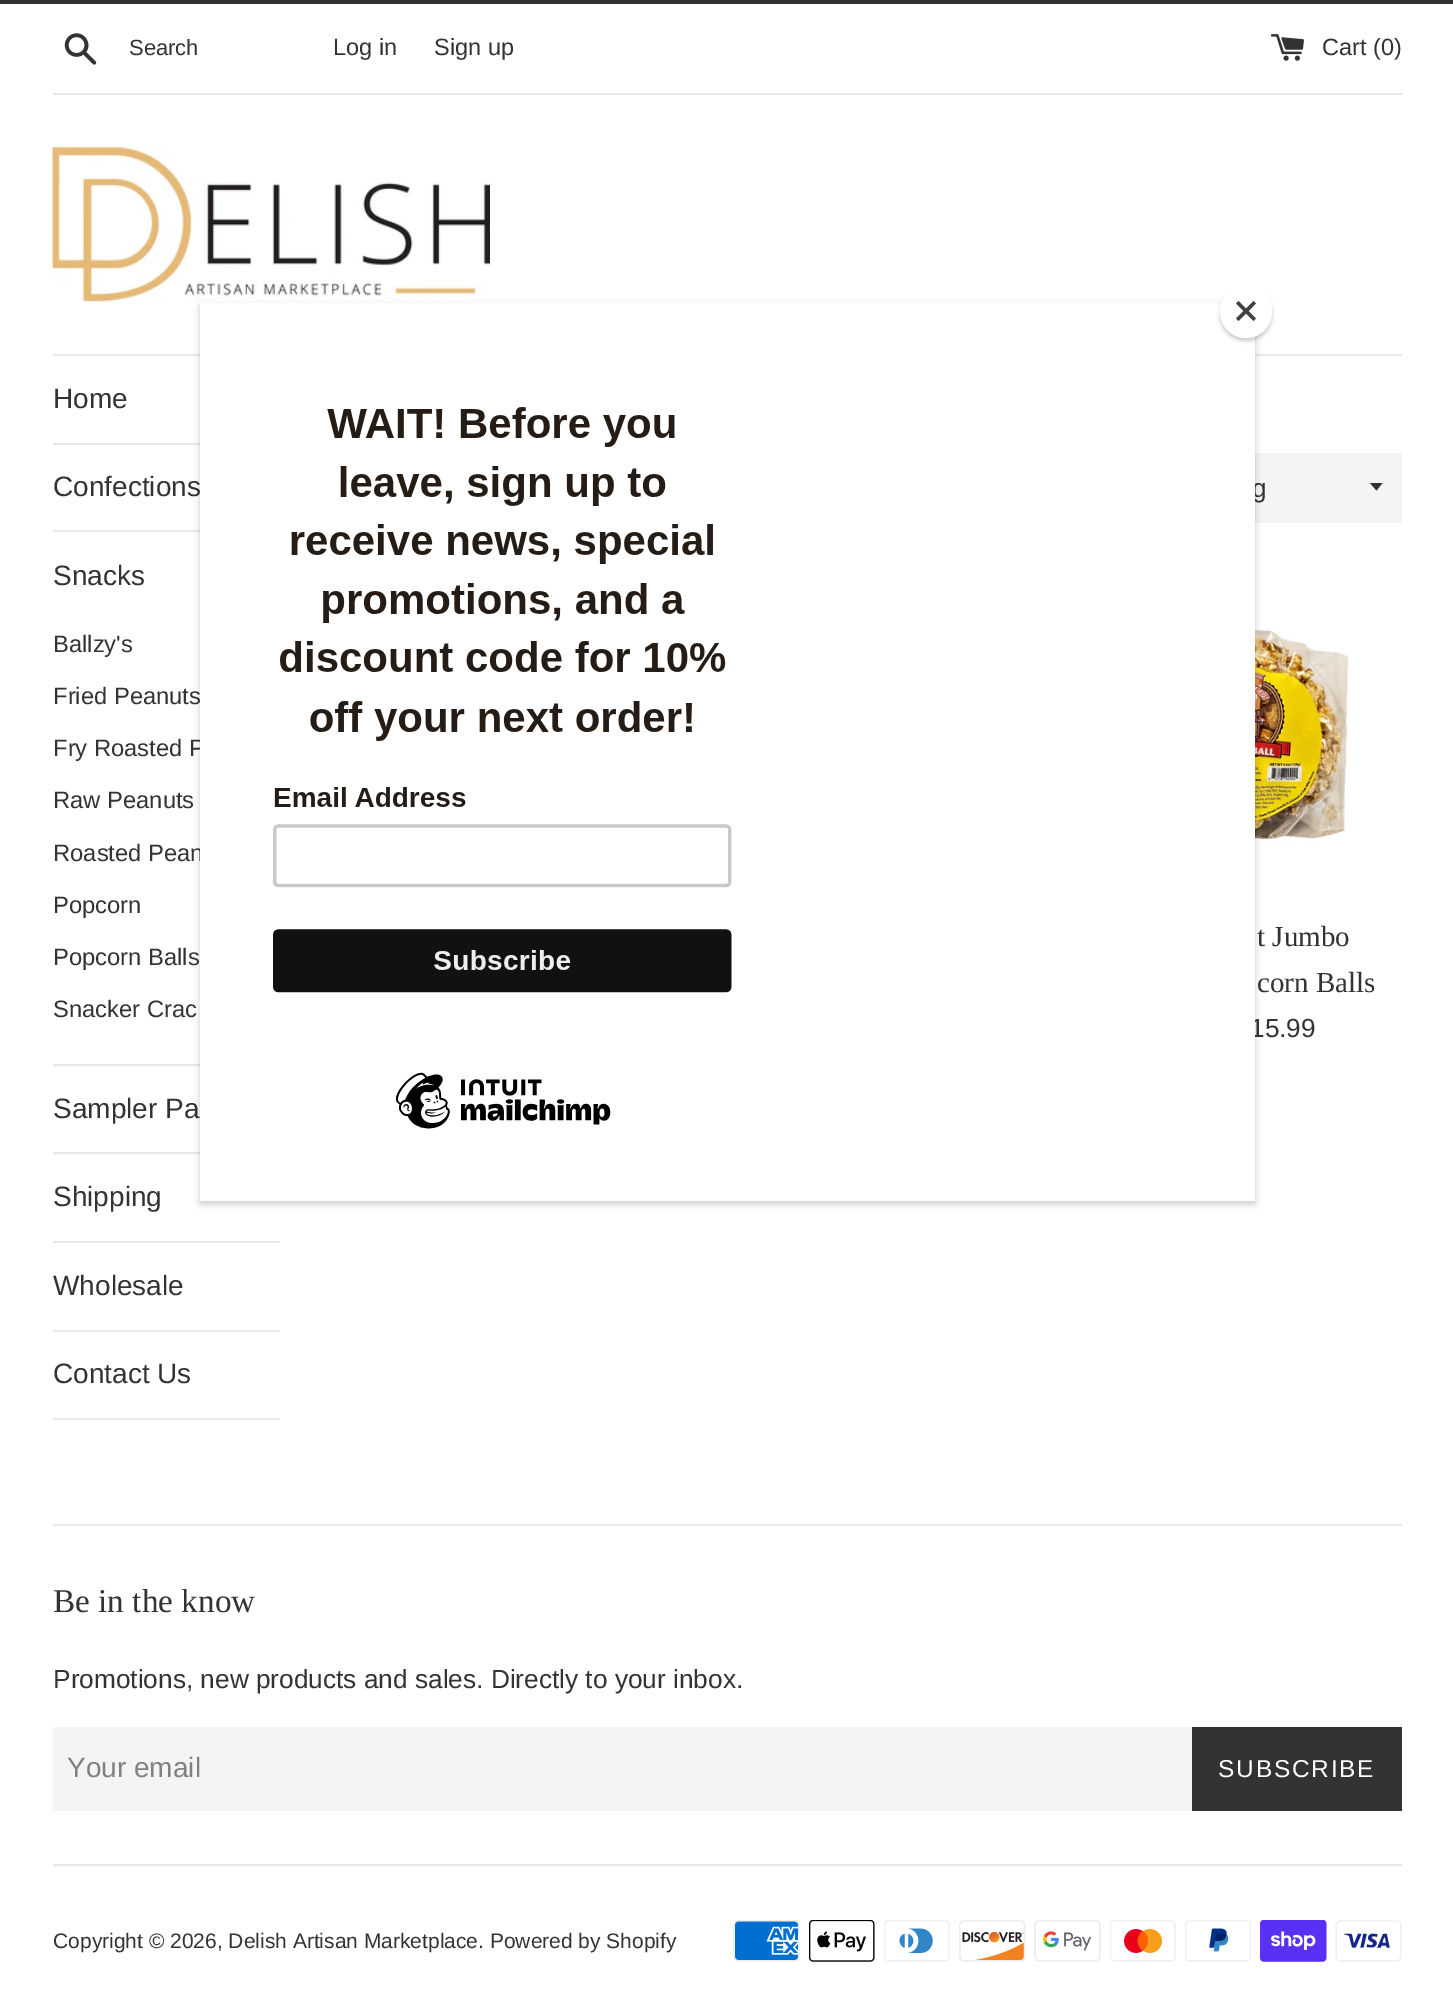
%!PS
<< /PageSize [1453 2013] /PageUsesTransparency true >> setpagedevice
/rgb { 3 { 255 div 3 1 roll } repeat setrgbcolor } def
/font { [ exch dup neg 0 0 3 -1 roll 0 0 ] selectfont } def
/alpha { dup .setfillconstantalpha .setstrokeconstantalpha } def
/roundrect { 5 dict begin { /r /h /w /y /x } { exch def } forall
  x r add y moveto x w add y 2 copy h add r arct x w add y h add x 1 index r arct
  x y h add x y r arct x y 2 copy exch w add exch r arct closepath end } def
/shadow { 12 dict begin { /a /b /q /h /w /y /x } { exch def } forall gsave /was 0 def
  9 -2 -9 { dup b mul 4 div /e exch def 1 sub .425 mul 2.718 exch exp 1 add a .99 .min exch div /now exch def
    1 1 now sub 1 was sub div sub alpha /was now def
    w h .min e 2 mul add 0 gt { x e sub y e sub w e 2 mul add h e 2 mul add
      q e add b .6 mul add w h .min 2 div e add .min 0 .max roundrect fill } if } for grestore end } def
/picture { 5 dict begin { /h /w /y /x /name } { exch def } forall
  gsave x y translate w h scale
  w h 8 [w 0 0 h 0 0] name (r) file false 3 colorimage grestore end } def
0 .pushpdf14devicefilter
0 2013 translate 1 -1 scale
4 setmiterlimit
255 255 255 rgb
0 0 1453 2013 rectfill
51 51 51 rgb
0 0 1453 4 rectfill
(img/1.rgb) 64 33 33 32 picture
(img/2.rgb) 1271 34 33 27 picture
232 232 232 rgb
53 93 1349 2 rectfill
(img/3.rgb) 52 147 438 155 picture
[
  [53 354 147 2 232 232 232]
  [53 443 147 2 232 232 232]
  [53 530 147 2 232 232 232]
  [53 1064 147 2 232 232 232]
  [53 1152 147 2 232 232 232]
  [1255 354 147 2 232 232 232]
  [1255 453 147 70 244 244 244]
] { aload pop rgb rectfill } forall
(img/5.rgb) 1255 629 94 215 picture
gsave
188 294 moveto 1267 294 lineto 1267 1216 lineto 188 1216 lineto closepath 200 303 moveto 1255 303 lineto 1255 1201 lineto 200 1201 lineto closepath eoclip newpath
0 0 0 rgb
200 306 1055 898 0 3.5 0.2 shadow
grestore
[
  [53 1241 227 2 232 232 232]
  [53 1330 227 2 232 232 232]
  [53 1418 227 2 232 232 232]
] { aload pop rgb rectfill } forall
51 51 51 rgb
1370 483 moveto 1376.5 490.5 lineto 1382.5 483 lineto closepath fill
[
  [53 1524 1349 2 232 232 232]
  [53 1727 1139 84 244 244 244]
  [1192 1727 210 84 51 51 51]
  [53 1864 1349 2 232 232 232]
] { aload pop rgb rectfill } forall
(img/6.rgb) 733 1920 67 42 picture
(img/7.rgb) 809 1920 66 42 picture
(img/8.rgb) 884 1920 66 42 picture
(img/9.rgb) 959 1920 67 42 picture
(img/10.rgb) 1034 1920 67 42 picture
(img/11.rgb) 1110 1920 66 42 picture
(img/12.rgb) 1185 1920 66 42 picture
(img/13.rgb) 1260 1920 67 42 picture
(img/14.rgb) 1335 1920 67 42 picture
/LiberationSans-Regular 22 font
51 51 51 rgb
129 55 moveto (Search) show
/LiberationSans-Regular 23.5 font
[
  [(Log in) 333 55]
  [(Sign up) 434 55]
  [(Cart \(0\)) 1322 55]
] { aload pop moveto show } forall
/LiberationSans-Regular 28 font
[
  [(Home) 53 408]
  [(Confections) 53 496]
  [(Snacks) 53 585]
] { aload pop moveto show } forall
/LiberationSans-Regular 23.75 font
[
  [(Ballzy's) 53 652]
  [(Fried Peanuts) 53 704]
  [(Fry Roasted P) 53 756]
  [(Raw Peanuts) 53 808]
  [(Roasted Pean) 53 861]
  [(Popcorn) 53 913]
  [(Popcorn Balls) 53 965]
  [(Snacker Crac) 53 1017]
] { aload pop moveto show } forall
/LiberationSans-Regular 28 font
[
  [(Sampler Pa) 53 1118]
  [(Shipping) 53 1206]
  [(Wholesale) 53 1295]
  [(Contact Us) 53 1383]
] { aload pop moveto show } forall
/LiberationSans-Regular 26.25 font
1252 497 moveto (g) show
/LiberationSerif-Regular 29 font
1257 946 moveto (t Jumbo) show
1257 992 moveto (corn Balls) show
/LiberationSans-Regular 26.25 font
1250 1037 moveto (15.99) show
(img/4.rgb) 200 307 1055 894 picture
0 0 0 rgb
1220 289 52 52 26 2 0.2 shadow
255 255 255 rgb
1220 285 52 53 26 roundrect fill
65 65 65 rgb
1253.5 301 moveto 1256 303.5 lineto 1238.5 321 lineto 1236 318.5 lineto closepath fill
1236 303.5 moveto 1238.5 301 lineto 1256 318.5 lineto 1253.5 321 lineto closepath fill
/LiberationSerif-Regular 33.25 font
51 51 51 rgb
53 1612 moveto (Be in the know) show
/LiberationSans-Regular 26.25 font
53 1688 moveto (Promotions, new products and sales. Directly to your inbox.) show
/LiberationSans-Regular 28 font
128 128 128 rgb
67 1777 moveto (Your email) show
/LiberationSans-Regular 24.5 font
255 255 255 rgb
1218 1777 moveto 1.75 0 (SUBSCRIBE) ashow
/LiberationSans-Regular 21 font
51 51 51 rgb
53 1948 moveto (Copyright © 2026, Delish Artisan Marketplace. Powered by Shopify) show
.poppdf14devicefilter showpage
